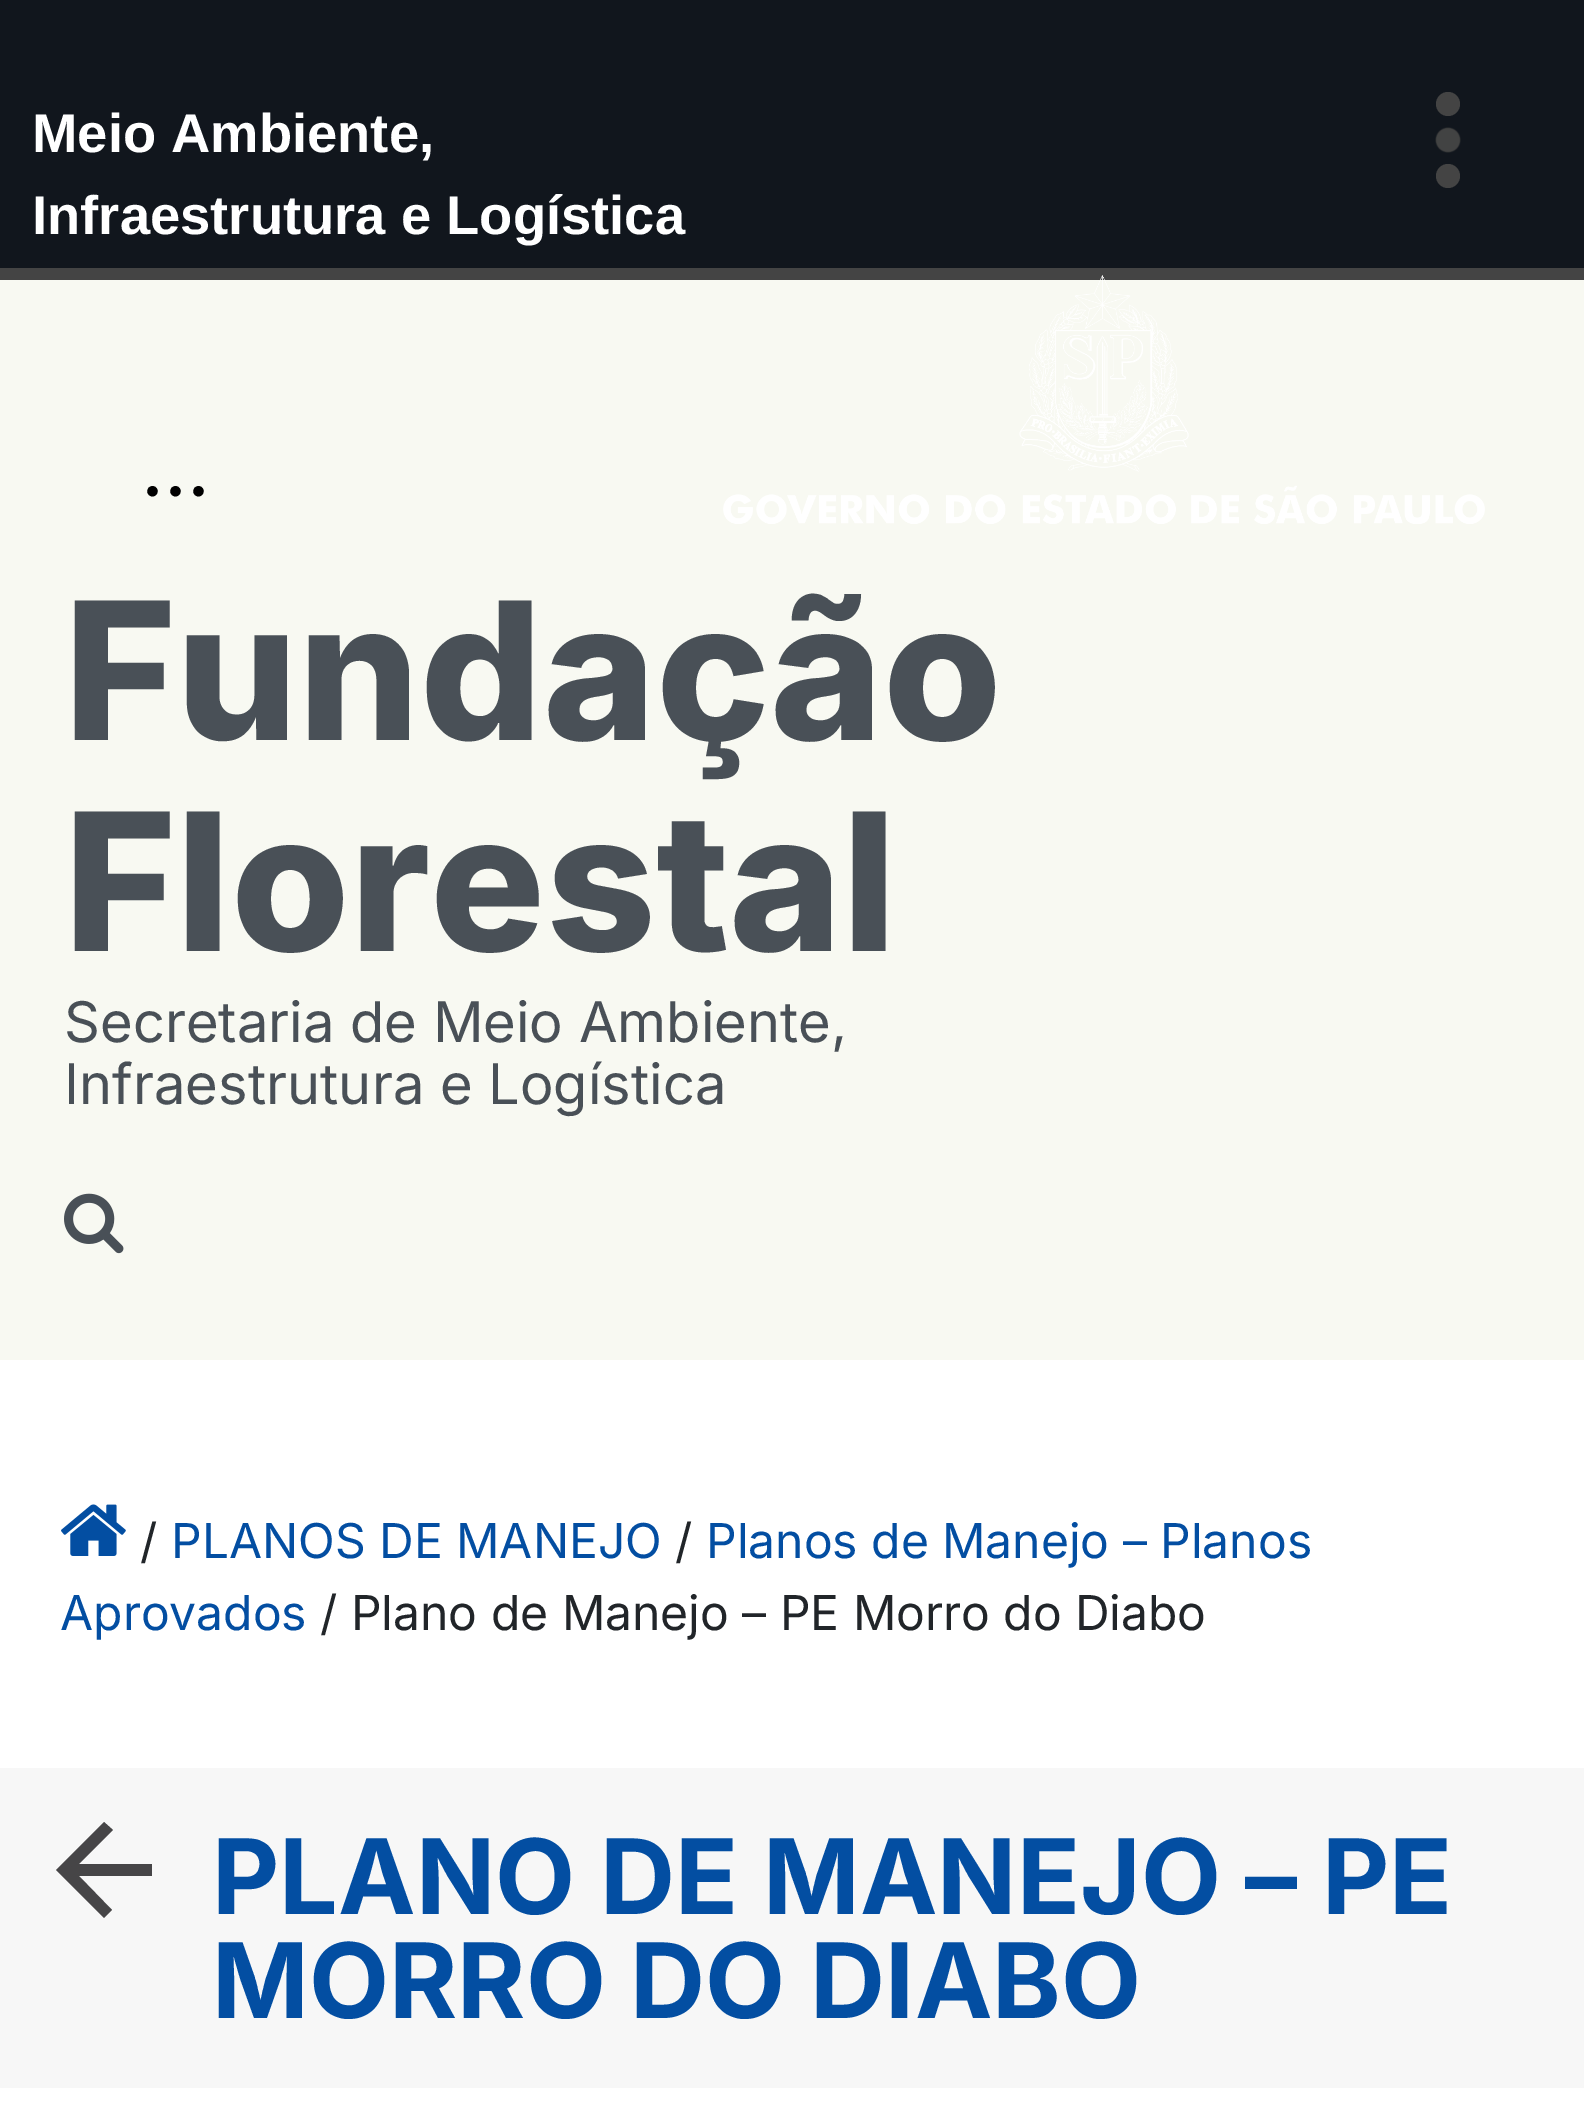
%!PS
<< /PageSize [1584 2104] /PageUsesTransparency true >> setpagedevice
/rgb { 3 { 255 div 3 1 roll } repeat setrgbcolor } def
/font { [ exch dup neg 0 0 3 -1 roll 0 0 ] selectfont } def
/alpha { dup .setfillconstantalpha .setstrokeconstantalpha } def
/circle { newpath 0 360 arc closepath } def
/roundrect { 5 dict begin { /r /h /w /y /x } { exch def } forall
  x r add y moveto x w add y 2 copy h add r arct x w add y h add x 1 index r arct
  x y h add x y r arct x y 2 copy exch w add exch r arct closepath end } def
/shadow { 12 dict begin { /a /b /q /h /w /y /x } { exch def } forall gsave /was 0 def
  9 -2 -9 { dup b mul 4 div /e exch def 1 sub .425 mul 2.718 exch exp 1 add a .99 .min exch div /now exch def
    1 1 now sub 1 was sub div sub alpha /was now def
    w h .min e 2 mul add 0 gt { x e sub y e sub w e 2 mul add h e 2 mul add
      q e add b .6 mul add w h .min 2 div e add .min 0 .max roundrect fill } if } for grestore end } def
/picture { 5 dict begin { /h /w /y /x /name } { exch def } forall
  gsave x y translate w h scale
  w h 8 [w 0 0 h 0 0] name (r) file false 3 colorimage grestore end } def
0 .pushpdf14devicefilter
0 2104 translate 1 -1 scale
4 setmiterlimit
255 255 255 rgb
0 0 1584 2104 rectfill
[
  [0 268 1584 12 68 68 68]
  [0 0 1584 268 17 22 29]
  [0 280 1584 1080 248 249 242]
] { aload pop rgb rectfill } forall
(img/1.rgb) 723 275 762 249 picture
68 68 68 rgb
1448 104 12 circle fill
1436 128 24 24 12 0.5 1 shadow
1448 176 12 circle fill
(img/2.rgb) 64 1193 60 61 picture
(img/3.rgb) 61 1504 65 52 picture
247 247 247 rgb
0 1768 1584 320 rectfill
70 69 71 rgb
152 1864 moveto 79 1864 lineto 113 1830 lineto 104 1822 lineto 56 1870 lineto 104 1918 lineto 112 1910 lineto 79 1876 lineto 152 1876 lineto closepath fill
/LiberationSans-Bold 54.4 font
255 255 255 rgb
32 152 moveto (Meio Ambiente,) show
32 234 moveto (Infraestrutura e Logística) show
/Inter-Regular 80 font
0 0 0 rgb
141 496 moveto (...) show
/Inter-ExtraBold 192 font
73 80 87 rgb
64 740 moveto (Fundação) show
64 951 moveto (Florestal) show
/Inter-Regular 56 font
64 1042 moveto (Secretaria de Meio Ambiente,) show
64 1104 moveto (Infraestrutura e Logística) show
/Inter-Regular 48 font
33 37 41 rgb
140 1558 moveto (/) show
3 78 162 rgb
171 1558 moveto (PLANOS DE MANEJO) show
33 37 41 rgb
675 1558 moveto (/) show
3 78 162 rgb
706 1558 moveto (Planos de Manejo – Planos) show
60 1630 moveto (Aprovados) show
33 37 41 rgb
320 1630 moveto (/ Plano de Manejo – PE Morro do Diabo) show
/Inter-Bold 104 font
3 78 162 rgb
212 1914 moveto (PLANO DE MANEJO – PE) show
212 2018 moveto (MORRO DO DIABO) show
.poppdf14devicefilter showpage
